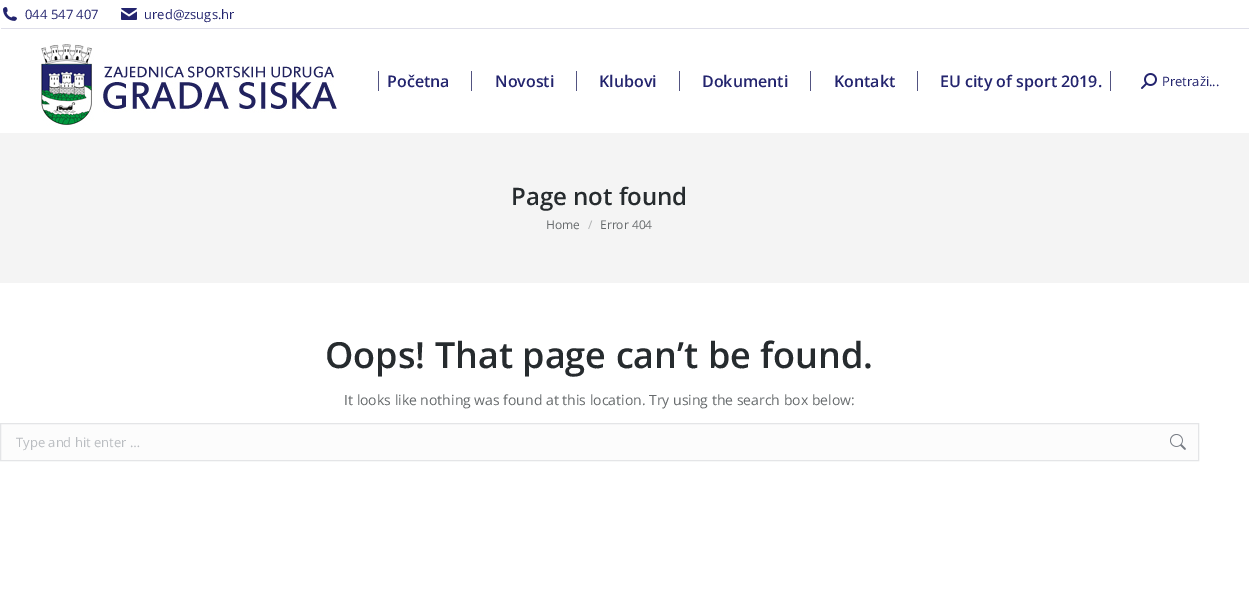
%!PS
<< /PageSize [1249 609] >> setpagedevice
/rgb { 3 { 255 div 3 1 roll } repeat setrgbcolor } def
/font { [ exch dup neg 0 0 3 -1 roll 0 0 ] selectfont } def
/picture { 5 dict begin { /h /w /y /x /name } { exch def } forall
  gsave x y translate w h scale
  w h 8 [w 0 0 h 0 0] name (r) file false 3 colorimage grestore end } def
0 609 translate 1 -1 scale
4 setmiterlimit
255 255 255 rgb
0 0 1249 609 rectfill
(img/1.rgb) 3 7 14 14 picture
(img/2.rgb) 121 8 16 12 picture
222 222 233 rgb
1 28 1248 1 rectfill
(img/3.rgb) 41 44 296 82 picture
[
  [378 71 1 20 82 83 129]
  [471 71 1 20 82 83 129]
  [576 71 1 20 82 83 129]
  [679 71 1 20 82 83 129]
  [810 71 1 20 82 83 129]
  [917 71 1 20 82 83 129]
  [1110 71 1 20 82 83 129]
] { aload pop rgb rectfill } forall
(img/4.rgb) 1141 73 16 16 picture
244 244 244 rgb
0 133 1249 150 rectfill
252 252 252 rgb
0.5 423.5 moveto 1198.5 423.5 lineto 1198.5 460.5 lineto 0.5 460.5 lineto closepath gsave fill grestore
228 229 231 rgb
stroke
(img/5.rgb) 1170 434 16 16 picture
/OpenSans-Regular 13 font
35 36 110 rgb
25 19 moveto (044 547 407) show
144 19 moveto (ured@zsugs.hr) show
/OpenSans-SemiBold 16 font
[
  [(Početna) 387 87]
  [(Novosti) 495 87]
  [(Klubovi) 599 87]
  [(Dokumenti) 702 87]
  [(Kontakt) 834 87]
  [(EU city of sport 2019.) 940 87]
] { aload pop moveto show } forall
/OpenSans-Regular 13 font
1162 86 moveto (Pretraži...) show
/OpenSans-SemiBold 24 font
38 43 46 rgb
511 205 moveto (Page not found) show
/OpenSans-Regular 12 font
103 107 109 rgb
546 229 moveto (Home) show
174 176 177 rgb
588 229 moveto (/) show
103 107 109 rgb
600 229 moveto (Error 404) show
/OpenSans-SemiBold 36 font
38 43 46 rgb
325 368 moveto (Oops! That page can’t be found.) show
/OpenSans-Regular 14 font
103 107 109 rgb
344 405 moveto (It looks like nothing was found at this location. Try using the search box below:) show
/OpenSans-Regular 13 font
186 189 193 rgb
16 447 moveto (Type and hit enter …) show
showpage
